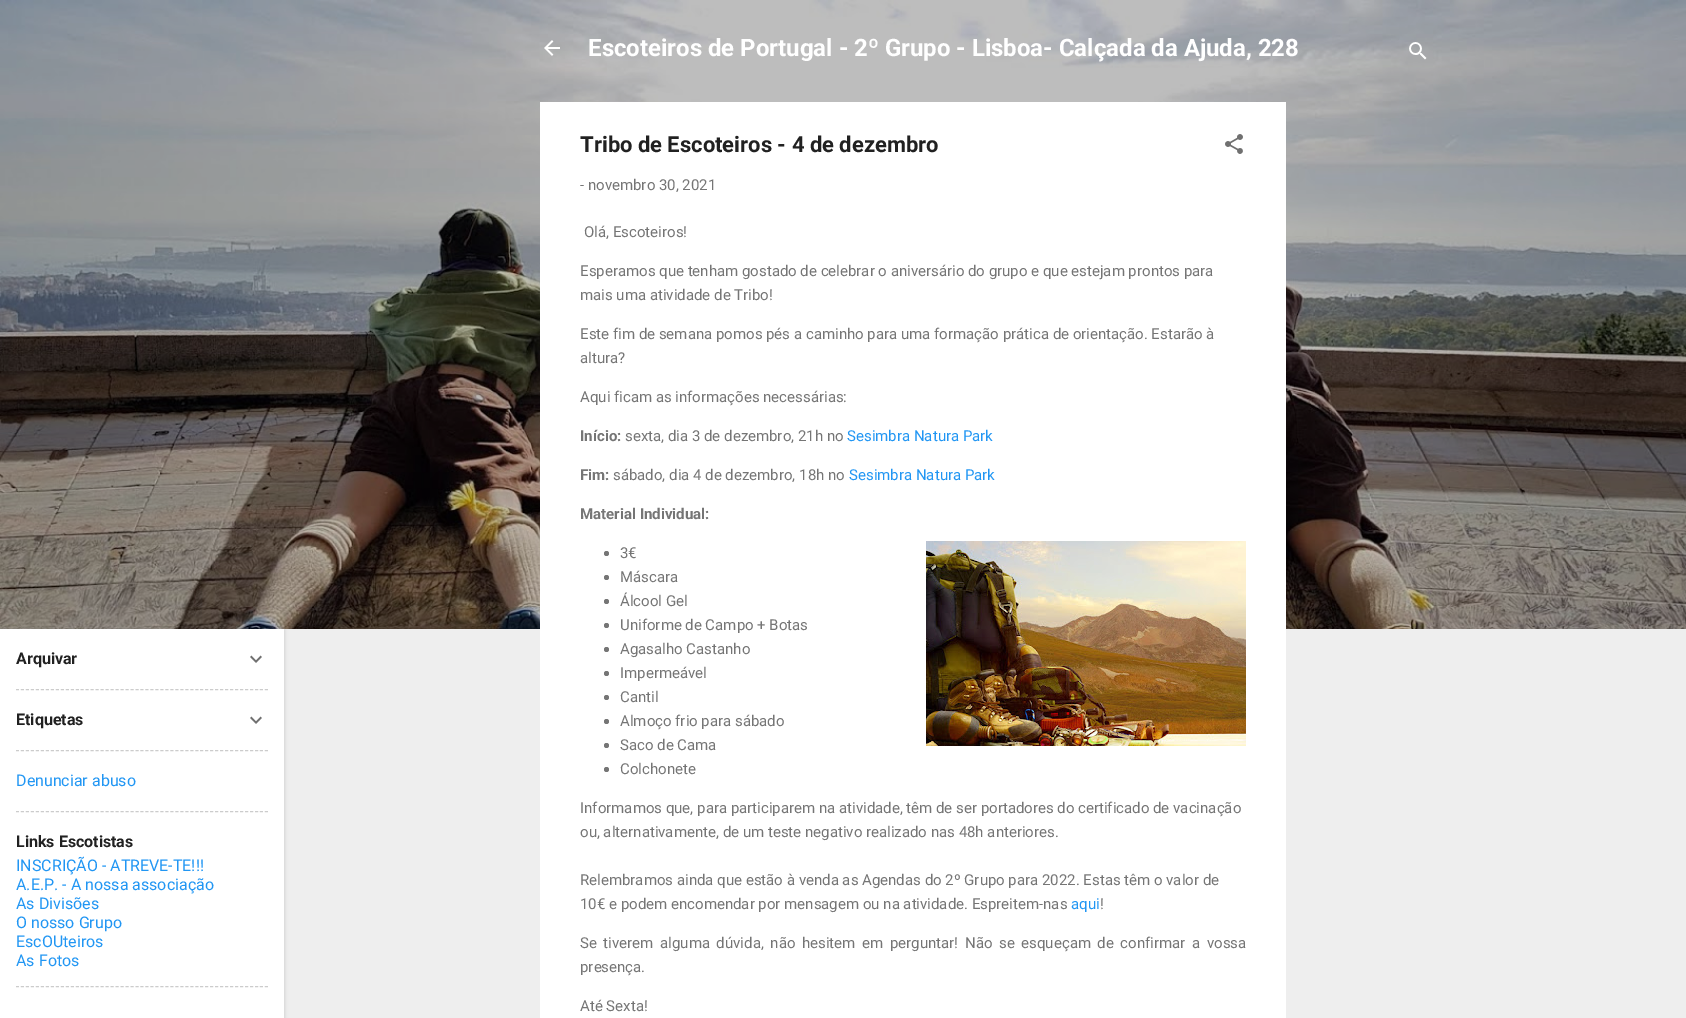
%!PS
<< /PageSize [1686 1018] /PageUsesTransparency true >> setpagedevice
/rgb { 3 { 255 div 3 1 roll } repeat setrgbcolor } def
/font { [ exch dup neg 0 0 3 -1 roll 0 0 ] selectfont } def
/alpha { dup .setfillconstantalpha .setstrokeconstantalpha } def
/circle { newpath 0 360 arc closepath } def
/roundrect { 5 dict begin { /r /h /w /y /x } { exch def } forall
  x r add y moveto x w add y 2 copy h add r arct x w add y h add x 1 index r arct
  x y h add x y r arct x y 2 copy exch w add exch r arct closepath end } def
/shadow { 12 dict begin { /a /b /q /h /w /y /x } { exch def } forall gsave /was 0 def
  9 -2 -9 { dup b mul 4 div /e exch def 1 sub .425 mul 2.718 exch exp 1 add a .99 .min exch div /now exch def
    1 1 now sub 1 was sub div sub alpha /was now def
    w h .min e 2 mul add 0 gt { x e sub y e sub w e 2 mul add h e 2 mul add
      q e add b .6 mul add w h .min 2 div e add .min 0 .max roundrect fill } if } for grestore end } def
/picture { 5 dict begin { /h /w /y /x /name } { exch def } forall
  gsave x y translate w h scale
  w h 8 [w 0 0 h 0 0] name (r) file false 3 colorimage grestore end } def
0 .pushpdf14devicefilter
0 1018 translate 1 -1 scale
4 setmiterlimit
238 238 238 rgb
0 0 1686 1018 rectfill
(img/2.rgb) 0 0 1686 629 picture
0 0 0 rgb
1 630 284 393 0 1.5 0.1 shadow
255 255 255 rgb
0 629 284 389 rectfill
(img/1.rgb) 250 655 12 8 picture
204 204 204 rgb
[3 1.98] 0 setdash
16 689.5 moveto 268 689.5 lineto stroke
(img/1.rgb) 250 716 12 8 picture
16 750.5 moveto 268 750.5 lineto stroke
16 811.5 moveto 268 811.5 lineto stroke
16 986.5 moveto 268 986.5 lineto stroke
(img/3.rgb) 544 40 16 16 picture
(img/4.rgb) 1409 42 18 18 picture
255 255 255 rgb
540 102 746 916 rectfill
(img/5.rgb) 1225 134 18 20 picture
117 117 117 rgb
606.5 553.5 2.5 circle fill
606.5 577.5 2.5 circle fill
606.5 601.5 2.5 circle fill
606.5 625.5 2.5 circle fill
606.5 649.5 2.5 circle fill
606.5 673.5 2.5 circle fill
606.5 697.5 2.5 circle fill
606.5 721.5 2.5 circle fill
606.5 745.5 2.5 circle fill
606.5 769.5 2.5 circle fill
(img/6.rgb) 926 541 320 205 picture
/Roboto-Bold 16 font
33 33 33 rgb
16 664 moveto (Arquivar) show
16 725 moveto (Etiquetas) show
/Roboto-Regular 16 font
33 150 243 rgb
16 786 moveto (Denunciar abuso) show
/Roboto-Bold 16 font
33 33 33 rgb
16 847 moveto (Links Escotistas) show
/Roboto-Regular 16 font
33 150 243 rgb
[
  [(INSCRIÇÃO - ATREVE-TE!!!) 16 871]
  [(A.E.P. - A nossa associação) 16 890]
  [(As Divisões) 16 909]
  [(O nosso Grupo) 16 928]
  [(EscOUteiros) 16 947]
  [(As Fotos) 16 966]
] { aload pop moveto show } forall
/Roboto-Bold 24 font
255 255 255 rgb
588 56 moveto (Escoteiros de Portugal - 2º Grupo - Lisboa- Calçada da Ajuda, 228) show
/Roboto-Bold 22 font
33 33 33 rgb
580 152 moveto (Tribo de Escoteiros - 4 de dezembro) show
/Roboto-Regular 15 font
117 117 117 rgb
[
  [(- novembro 30, 2021) 580 190]
  [(Olá, Escoteiros!) 584 237]
  [(Esperamos que tenham gostado de celebrar o aniversário do grupo e que estejam prontos para) 580 276]
  [(mais uma atividade de Tribo!) 580 300]
  [(Este fim de semana pomos pés a caminho para uma formação prática de orientação. Estarão à) 580 339]
  [(altura?) 580 363]
  [(Aqui ficam as informações necessárias:) 580 402]
] { aload pop moveto show } forall
/Roboto-Bold 15 font
580 441 moveto (Início:) show
/Roboto-Regular 15 font
625 441 moveto (sexta, dia 3 de dezembro, 21h no) show
33 150 243 rgb
847 441 moveto (Sesimbra Natura Park) show
/Roboto-Bold 15 font
117 117 117 rgb
580 480 moveto (Fim:) show
/Roboto-Regular 15 font
613 480 moveto (sábado, dia 4 de dezembro, 18h no) show
33 150 243 rgb
849 480 moveto (Sesimbra Natura Park) show
/Roboto-Bold 15 font
117 117 117 rgb
580 519 moveto (Material Individual:) show
/Roboto-Regular 15 font
[
  [(3€) 620 558]
  [(Máscara) 620 582]
  [(Álcool Gel) 620 606]
  [(Uniforme de Campo + Botas) 620 630]
  [(Agasalho Castanho) 620 654]
  [(Impermeável) 620 678]
  [(Cantil) 620 702]
  [(Almoço frio para sábado) 620 726]
  [(Saco de Cama) 620 750]
  [(Colchonete) 620 774]
  [(Informamos que, para participarem na atividade, têm de ser portadores do certificado de vacinação) 580 813]
  [(ou, alternativamente, de um teste negativo realizado nas 48h anteriores.) 580 837]
  [(Relembramos ainda que estão à venda as Agendas do 2º Grupo para 2022. Estas têm o valor de) 580 885]
  [(10€ e podem encomendar por mensagem ou na atividade. Espreitem-nas) 580 909]
] { aload pop moveto show } forall
33 150 243 rgb
1071 909 moveto (aqui) show
117 117 117 rgb
1100 909 moveto (!) show
580 948 moveto 2.9 0 32 (Se tiverem alguma dúvida, não hesitem em perguntar! Não se esqueçam de confirmar a vossa) widthshow
580 972 moveto (presença.) show
580 1011 moveto (Até Sexta!) show
.poppdf14devicefilter showpage
